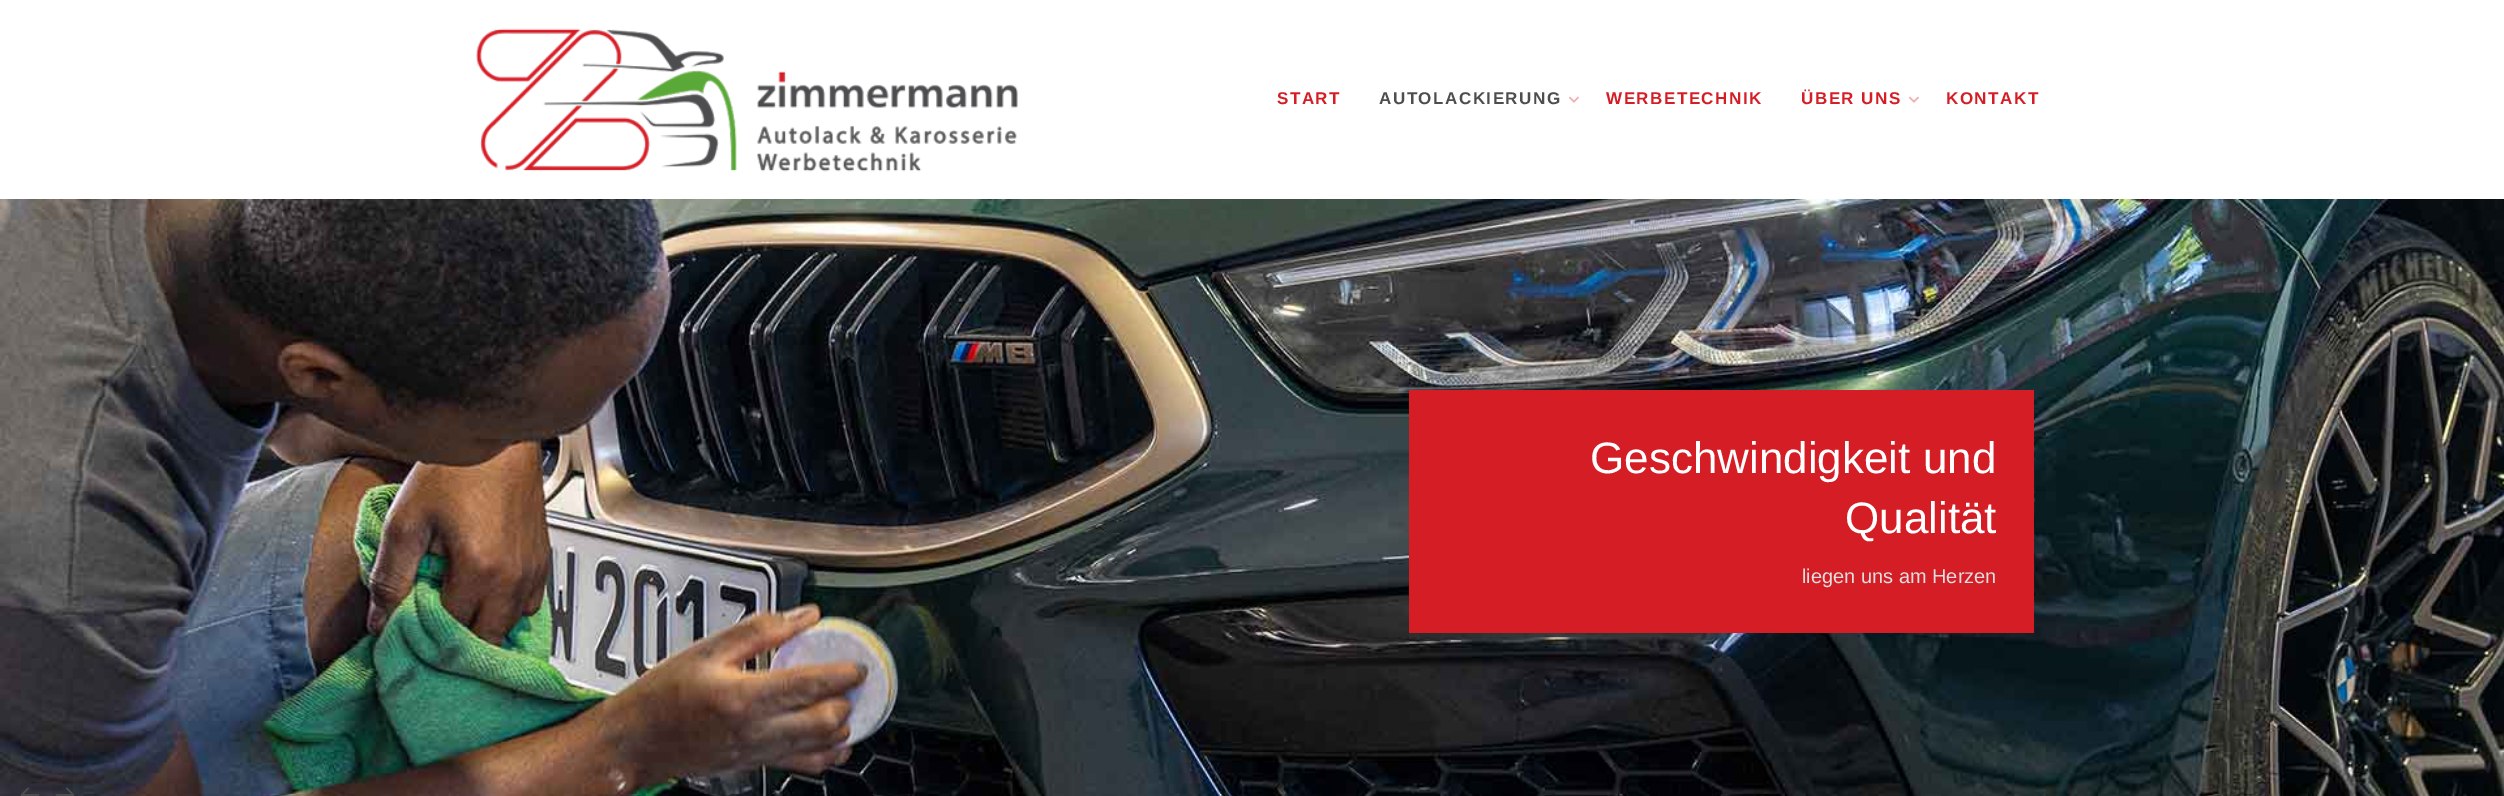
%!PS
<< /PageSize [2504 796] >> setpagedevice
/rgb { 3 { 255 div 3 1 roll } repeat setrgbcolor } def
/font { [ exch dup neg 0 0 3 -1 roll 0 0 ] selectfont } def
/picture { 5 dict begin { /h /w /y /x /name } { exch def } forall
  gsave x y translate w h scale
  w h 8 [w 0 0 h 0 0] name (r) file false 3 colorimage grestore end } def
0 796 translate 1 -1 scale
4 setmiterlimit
255 255 255 rgb
0 0 2504 796 rectfill
(img/1.rgb) 476 28 542 144 picture
(img/2.rgb) 1569 96 10 7 picture
(img/2.rgb) 1909 96 10 7 picture
(img/3.rgb) 0 199 2504 597 picture
213 29 38 rgb
1409 390 625 243 rectfill
(img/4.rgb) 20 787 20 9 picture
(img/5.rgb) 55 787 20 9 picture
/LiberationSans-Bold 17 font
1277 104 moveto 1.5 0 (START) ashow
77 78 79 rgb
1379 104 moveto 1.5 0 (AUTOLACKIERUNG) ashow
213 29 38 rgb
1606 104 moveto 1.5 0 (WERBETECHNIK) ashow
1801 104 moveto 1.5 0 (ÜBER UNS) ashow
1946 104 moveto 1.5 0 (KONTAKT) ashow
/LiberationSans-Regular 44 font
255 255 255 rgb
1590 473 moveto (Geschwindigkeit und) show
1845 533 moveto (Qualität) show
/LiberationSans-Regular 20 font
224 224 224 rgb
1802 583 moveto (liegen uns am Herzen) show
showpage
